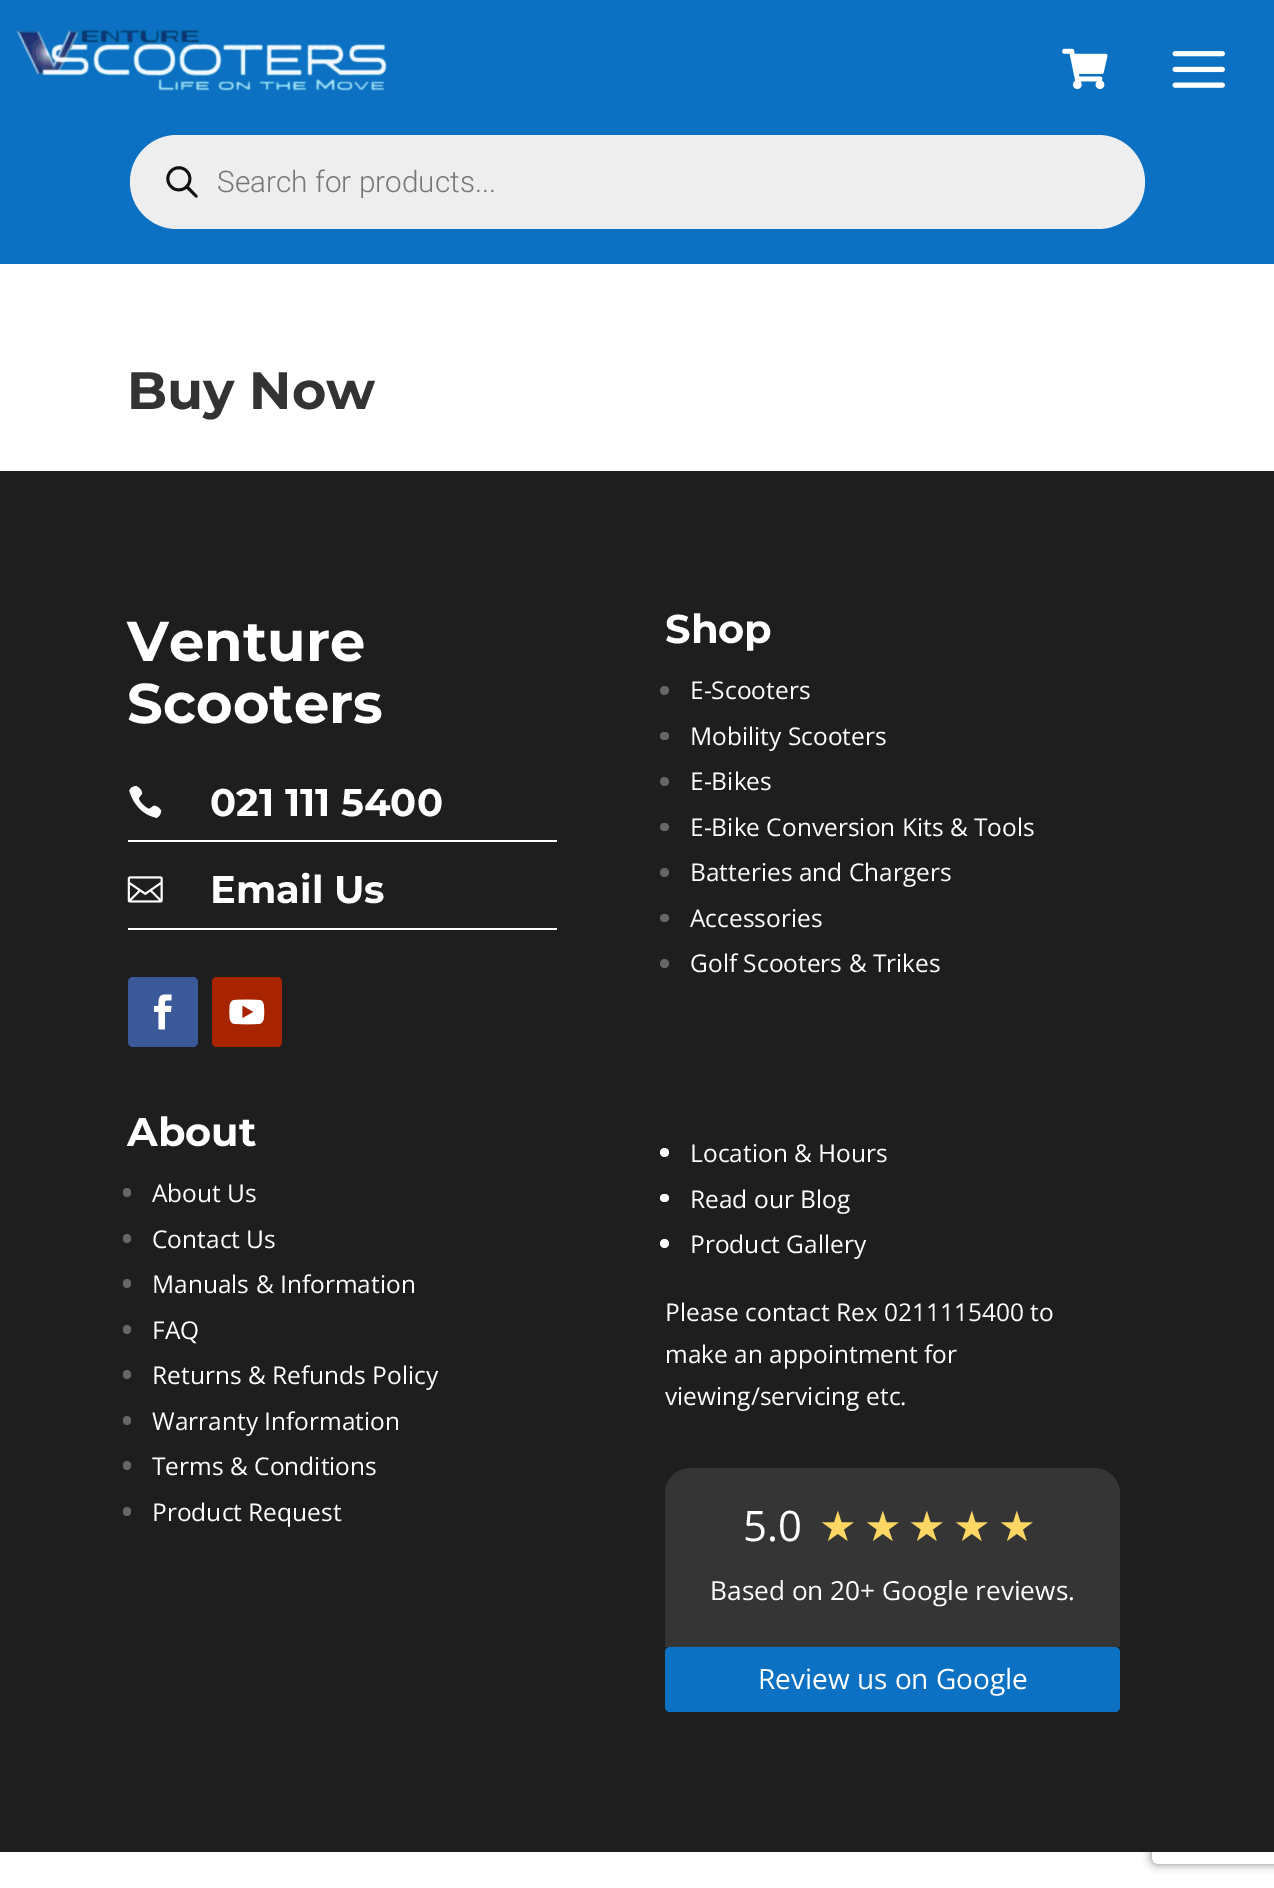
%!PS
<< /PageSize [1274 1888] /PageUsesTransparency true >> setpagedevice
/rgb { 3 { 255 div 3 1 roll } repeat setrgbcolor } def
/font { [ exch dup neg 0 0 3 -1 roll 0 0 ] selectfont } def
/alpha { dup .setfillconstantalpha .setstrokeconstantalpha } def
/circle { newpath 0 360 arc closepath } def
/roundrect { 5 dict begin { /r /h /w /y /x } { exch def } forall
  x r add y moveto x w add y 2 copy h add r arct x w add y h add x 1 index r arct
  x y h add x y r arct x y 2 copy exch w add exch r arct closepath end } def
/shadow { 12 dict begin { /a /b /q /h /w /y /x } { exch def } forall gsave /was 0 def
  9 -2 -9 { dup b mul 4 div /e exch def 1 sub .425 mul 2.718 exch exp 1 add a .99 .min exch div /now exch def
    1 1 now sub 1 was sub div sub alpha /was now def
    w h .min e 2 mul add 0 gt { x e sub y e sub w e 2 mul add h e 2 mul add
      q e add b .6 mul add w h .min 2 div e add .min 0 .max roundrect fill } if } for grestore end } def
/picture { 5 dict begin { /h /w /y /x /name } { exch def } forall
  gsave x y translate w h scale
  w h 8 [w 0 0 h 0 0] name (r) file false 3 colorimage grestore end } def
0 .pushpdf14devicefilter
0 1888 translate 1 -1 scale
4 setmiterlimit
255 255 255 rgb
0 0 1274 1888 rectfill
12 113 195 rgb
0 0 1274 264 rectfill
(img/1.rgb) 16 29 371 62 picture
(img/2.rgb) 1062 48 46 41 picture
(img/3.rgb) 1172 51 53 37 picture
238 238 238 rgb
130 135 1015 94 47 roundrect fill
(img/4.rgb) 166 166 32 32 picture
gsave
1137 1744 moveto 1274 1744 lineto 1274 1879 lineto 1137 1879 lineto closepath 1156 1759 moveto 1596 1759 lineto 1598 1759 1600 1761 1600 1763 curveto 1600 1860 lineto 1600 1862 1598 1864 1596 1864 curveto 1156 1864 lineto 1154 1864 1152 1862 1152 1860 curveto 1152 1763 lineto 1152 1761 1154 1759 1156 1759 curveto closepath eoclip newpath
128 128 128 rgb
1152 1759 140 105 4 4.5 1 shadow
grestore
30 30 30 rgb
0 471 1274 1381 rectfill
255 255 255 rgb
128 840 429 2 rectfill
(img/5.rgb) 129 785 33 33 picture
128 928 429 2 rectfill
(img/6.rgb) 127 876 36 27 picture
59 89 152 rgb
128 977 70 70 5 roundrect fill
(img/7.rgb) 154 994 18 36 picture
168 36 0 rgb
212 977 70 70 5 roundrect fill
(img/8.rgb) 229 999 36 26 picture
102 102 102 rgb
664.5 690.5 4.5 circle fill
660 732 9 8 4 roundrect fill
664.5 781.5 4.5 circle fill
660 823 9 8 4 roundrect fill
664.5 872.5 4.5 circle fill
660 914 9 8 4 roundrect fill
664.5 963.5 4.5 circle fill
123 1188 8 9 4 roundrect fill
123 1234 8 9 4 roundrect fill
123 1279 8 9 4 roundrect fill
123 1325 8 9 4 roundrect fill
123 1370 8 9 4 roundrect fill
123 1416 8 9 4 roundrect fill
123 1461 8 9 4 roundrect fill
123 1507 8 9 4 roundrect fill
255 255 255 rgb
664.5 1152.5 4.5 circle fill
660 1194 9 8 4 roundrect fill
664.5 1243.5 4.5 circle fill
53 53 53 rgb
691 1468 moveto 1094 1468 lineto 1108.5 1468 1120 1479.5 1120 1494 curveto 1120 1647 lineto 665 1647 lineto 665 1494 lineto 665 1479.5 676.5 1468 691 1468 curveto closepath fill
12 113 195 rgb
665 1647 455 65 5 roundrect fill
/Roboto-Light 29.75 font
119 119 119 rgb
217 192 moveto (Search for products...) show
/Montserrat-Thin 52.5 font
51 51 51 rgb
127 409 moveto (Buy Now) show
/Montserrat-Thin 56 font
255 255 255 rgb
127 661 moveto (Venture) show
127 723 moveto (Scooters) show
/Montserrat-Thin 38.5 font
210 816 moveto (021 111 5400) show
210 903 moveto (Email Us) show
/Montserrat-Thin 40 font
665 643 moveto (Shop) show
/OpenSans-Regular 24.5 font
[
  [(E-Scooters) 690 699]
  [(Mobility Scooters) 690 745]
  [(E-Bikes) 690 790]
  [(E-Bike Conversion Kits & Tools) 690 836]
  [(Batteries and Chargers) 690 881]
  [(Accessories) 690 927]
  [(Golf Scooters & Trikes) 690 972]
] { aload pop moveto show } forall
/Montserrat-Thin 40 font
127 1146 moveto (About) show
/OpenSans-Regular 24.5 font
[
  [(About Us) 152 1202]
  [(Contact Us) 152 1248]
  [(Manuals & Information) 152 1293]
  [(FAQ) 152 1339]
  [(Returns & Refunds Policy) 152 1384]
  [(Warranty Information) 152 1430]
  [(Terms & Conditions) 152 1475]
  [(Product Request) 152 1521]
  [(Location & Hours) 690 1162]
  [(Read our Blog) 690 1208]
  [(Product Gallery) 690 1253]
  [(Please contact Rex 0211115400 to) 665 1321]
  [(make an appointment for) 665 1363]
  [(viewing/servicing etc.) 665 1405]
] { aload pop moveto show } forall
/OpenSans-Regular 42 font
743 1541 moveto (5.0) show
/DejaVuSans-Regular 42 font
253 214 99 rgb
819 1541 moveto 7 0 (★★★★★) ashow
/OpenSans-Regular 26.25 font
255 255 255 rgb
710 1600 moveto (Based on 20+ Google reviews.) show
/OpenSans-Regular 28 font
758 1689 moveto (Review us on Google) show
.poppdf14devicefilter showpage
